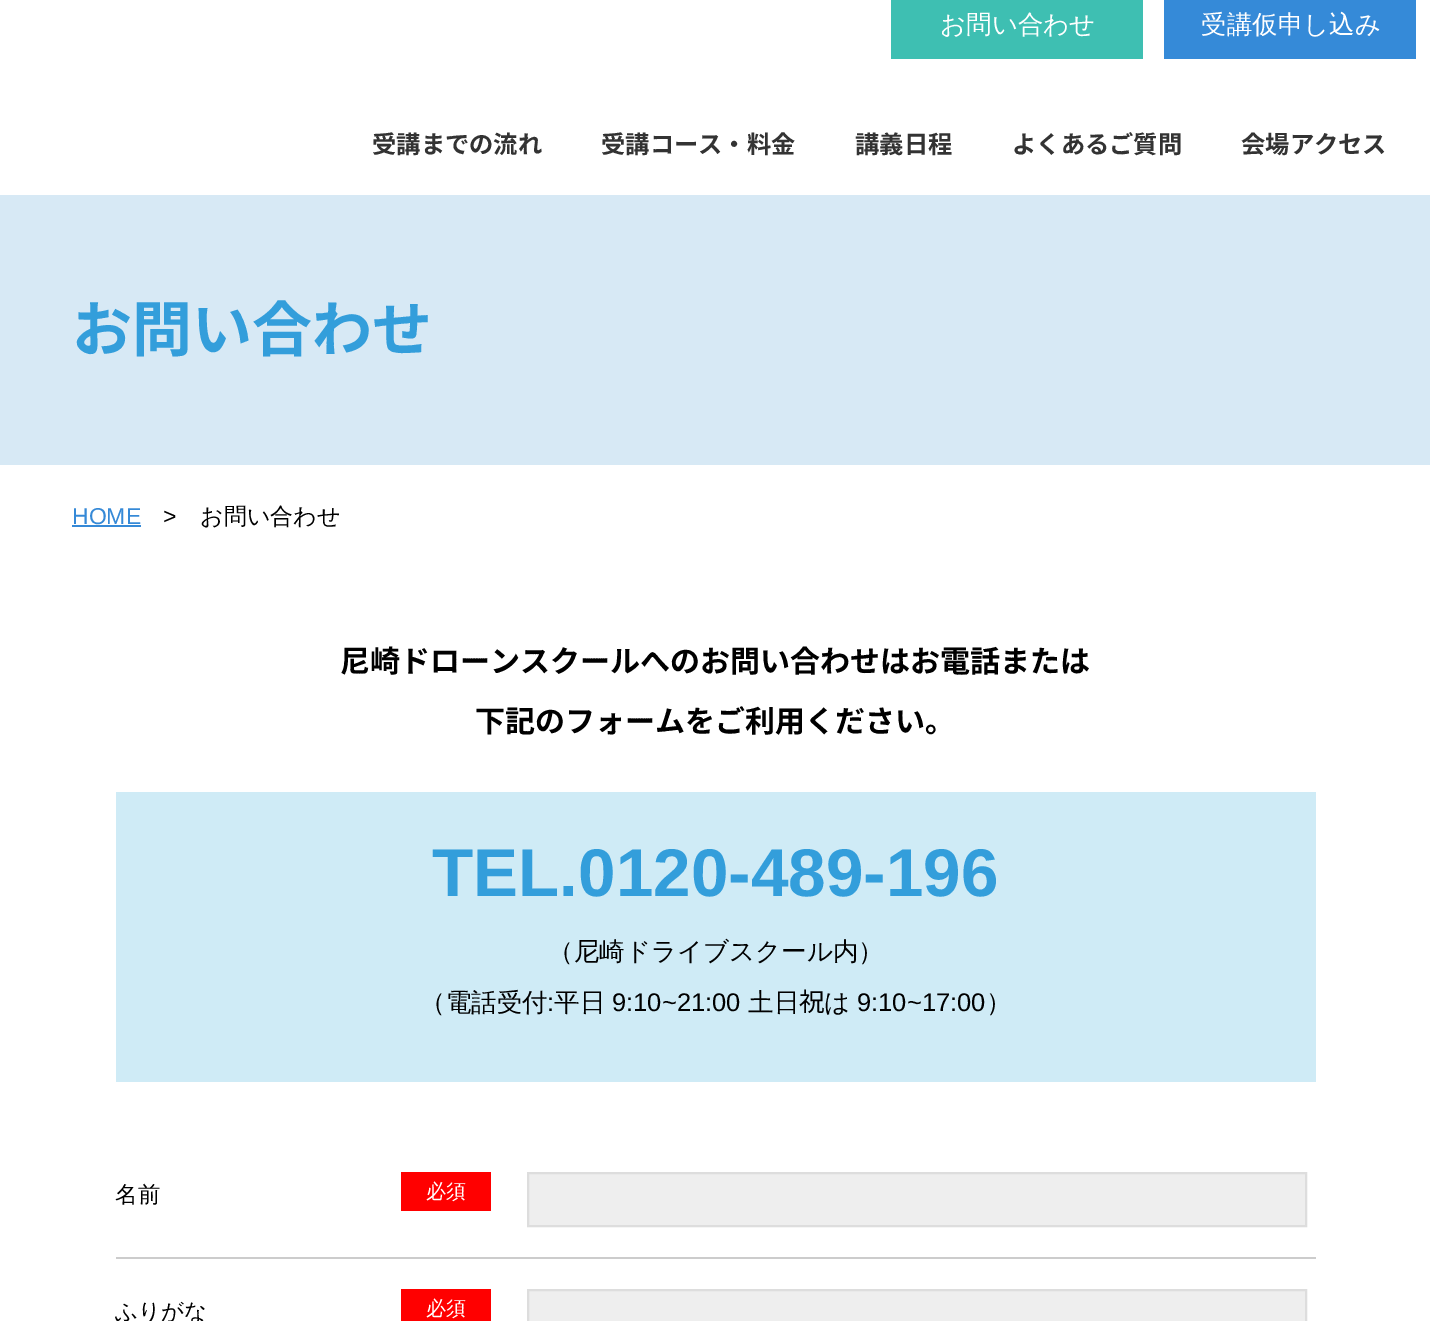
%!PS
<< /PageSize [1430 1321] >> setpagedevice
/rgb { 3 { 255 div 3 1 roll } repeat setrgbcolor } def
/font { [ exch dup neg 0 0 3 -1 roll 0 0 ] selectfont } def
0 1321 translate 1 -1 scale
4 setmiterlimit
255 255 255 rgb
0 0 1430 1321 rectfill
[
  [891 0 252 59 62 191 178]
  [1164 0 252 59 53 138 216]
  [0 195 1430 270 215 233 245]
  [72 525 69 2 53 137 215]
  [116 792 1200 290 207 235 246]
  [116 1257 1200 2 204 204 204]
  [401 1172 90 39 255 0 0]
] { aload pop rgb rectfill } forall
238 238 238 rgb
528 1173 moveto 1306 1173 lineto 1306 1226 lineto 528 1226 lineto closepath gsave fill grestore
221 221 221 rgb
2 setlinewidth
stroke
255 0 0 rgb
401 1289 90 32 rectfill
238 238 238 rgb
528 1290 moveto 1306 1290 lineto 1306 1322 lineto 528 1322 lineto closepath gsave fill grestore
221 221 221 rgb
stroke
/WenQuanYiZenHei-Medium 25.5 font
255 255 255 rgb
940 33 moveto (お問い合わせ) show
1201 33 moveto (受講仮申し込み) show
/NotoSansJP-Bold 24.25 font
51 51 51 rgb
[
  [(受講までの流れ) 372 153]
  [(受講コース・料金) 601 153]
  [(講義日程) 855 153]
  [(よくあるご質問) 1012 153]
  [(会場アクセス) 1241 153]
] { aload pop moveto show } forall
/NotoSansJP-Bold 60 font
51 158 219 rgb
72 351 moveto (お問い合わせ) show
/LiberationSans-Regular 23 font
53 137 215 rgb
72 524 moveto (HOME) show
0 0 0 rgb
163 524 moveto (>) show
/WenQuanYiZenHei-Medium 23 font
200 524 moveto (お問い合わせ) show
/NotoSansJP-Bold 30 font
340 672 moveto (尼崎ドローンスクールへのお問い合わせはお電話または) show
475 732 moveto (下記のフォームをご利用ください。) show
/LiberationSans-Bold 67.5 font
51 158 219 rgb
432 896 moveto (TEL.0120-489-196) show
/WenQuanYiZenHei-Medium 25.5 font
0 0 0 rgb
548 960 moveto (（尼崎ドライブスクール内）) show
420 1011 moveto (（電話受付) show
/LiberationSans-Regular 25.5 font
547 1011 moveto (:) show
/WenQuanYiZenHei-Medium 25.5 font
554 1011 moveto (平日) show
/LiberationSans-Regular 25.5 font
612 1011 moveto (9:10~21:00) show
/WenQuanYiZenHei-Medium 25.5 font
748 1011 moveto (土日) show
/NotoSansJP-Regular 25.5 font
799 1011 moveto (祝) show
/WenQuanYiZenHei-Medium 25.5 font
824 1011 moveto (は) show
/LiberationSans-Regular 25.5 font
857 1011 moveto (9:10~17:00) show
/WenQuanYiZenHei-Medium 25.5 font
986 1011 moveto (）) show
/WenQuanYiZenHei-Medium 22.5 font
115 1202 moveto (名前) show
/WenQuanYiZenHei-Medium 20 font
255 255 255 rgb
426 1198 moveto (必須) show
/WenQuanYiZenHei-Medium 22.5 font
0 0 0 rgb
115 1319 moveto (ふりがな) show
/WenQuanYiZenHei-Medium 20 font
255 255 255 rgb
426 1315 moveto (必須) show
showpage
